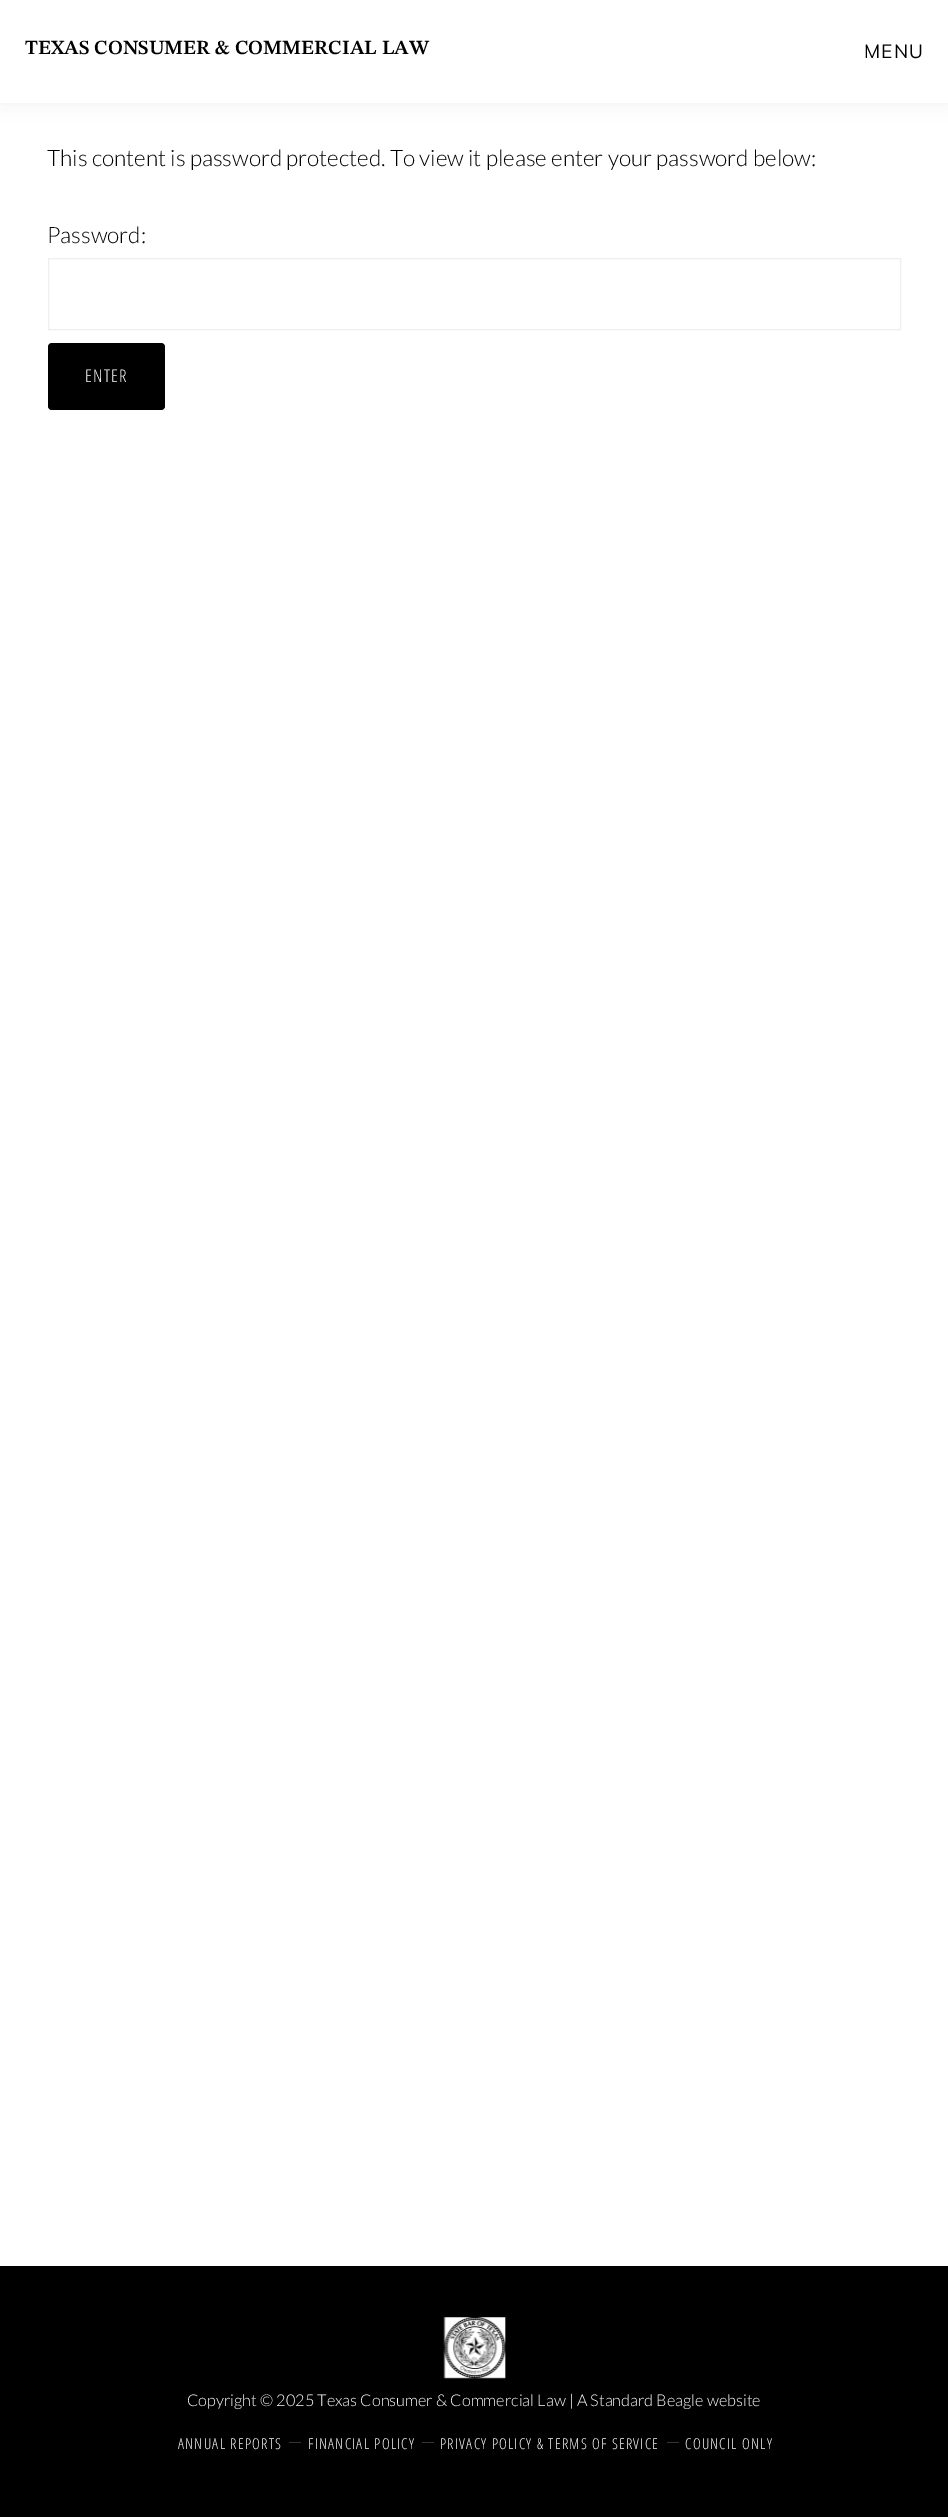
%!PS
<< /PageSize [948 2517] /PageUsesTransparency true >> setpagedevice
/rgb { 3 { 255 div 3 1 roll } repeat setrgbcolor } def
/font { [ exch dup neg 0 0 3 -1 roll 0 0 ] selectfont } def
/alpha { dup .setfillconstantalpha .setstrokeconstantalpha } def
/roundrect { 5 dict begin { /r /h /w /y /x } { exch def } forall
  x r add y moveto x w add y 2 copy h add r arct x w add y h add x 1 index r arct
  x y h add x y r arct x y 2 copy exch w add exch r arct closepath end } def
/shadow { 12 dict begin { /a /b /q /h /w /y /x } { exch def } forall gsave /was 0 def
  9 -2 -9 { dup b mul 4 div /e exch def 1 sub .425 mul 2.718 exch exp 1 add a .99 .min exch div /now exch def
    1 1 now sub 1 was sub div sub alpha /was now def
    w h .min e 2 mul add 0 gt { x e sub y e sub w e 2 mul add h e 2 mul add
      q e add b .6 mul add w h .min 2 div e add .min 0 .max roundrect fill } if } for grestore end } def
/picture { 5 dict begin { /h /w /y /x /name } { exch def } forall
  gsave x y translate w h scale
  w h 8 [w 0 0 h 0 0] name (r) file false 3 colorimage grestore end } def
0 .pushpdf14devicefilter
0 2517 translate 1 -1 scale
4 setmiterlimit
255 255 255 rgb
0 0 948 2517 rectfill
0 0 0 rgb
0 0 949 103 0 12.5 0.05 shadow
255 255 255 rgb
0 0 948 103 rectfill
238 238 238 rgb
48.5 258.5 852 71 rectstroke
0 0 0 rgb
48 343 117 67 4 roundrect fill
0 2266 948 251 rectfill
(img/1.rgb) 443 2317 63 62 picture
/STIXTwoText-SemiBold 20 font
25 54 moveto (TEXAS CONSUMER & COMMERCIAL LAW) show
/Muli-Regular 19 font
864 58 moveto 1.25 0 (MENU) ashow
/Lato-Light 22.5 font
47 166 moveto (This content is password protected. To view it please enter your password below:) show
47 243 moveto (Password:) show
/OpenSansCondensed-Light 17.5 font
255 255 255 rgb
85 382 moveto 1.25 0 (ENTER) ashow
/Lato-Light 16.25 font
187 2406 moveto (Copyright © 2025 Texas Consumer & Commercial Law | A Standard Beagle website) show
/OpenSansCondensed-Light 15 font
178 2449 moveto 1.25 0 (ANNUAL REPORTS) ashow
/Muli-Light 12 font
102 102 102 rgb
289 2446 moveto (—) show
/OpenSansCondensed-Light 15 font
255 255 255 rgb
308 2449 moveto 1.25 0 (FINANCIAL POLICY) ashow
/Muli-Light 12 font
102 102 102 rgb
422 2446 moveto (—) show
/OpenSansCondensed-Light 15 font
255 255 255 rgb
440 2449 moveto 1.25 0 (PRIVACY POLICY & TERMS OF SERVICE) ashow
/Muli-Light 12 font
102 102 102 rgb
667 2446 moveto (—) show
/OpenSansCondensed-Light 15 font
255 255 255 rgb
685 2449 moveto 1.25 0 (COUNCIL ONLY) ashow
.poppdf14devicefilter showpage
